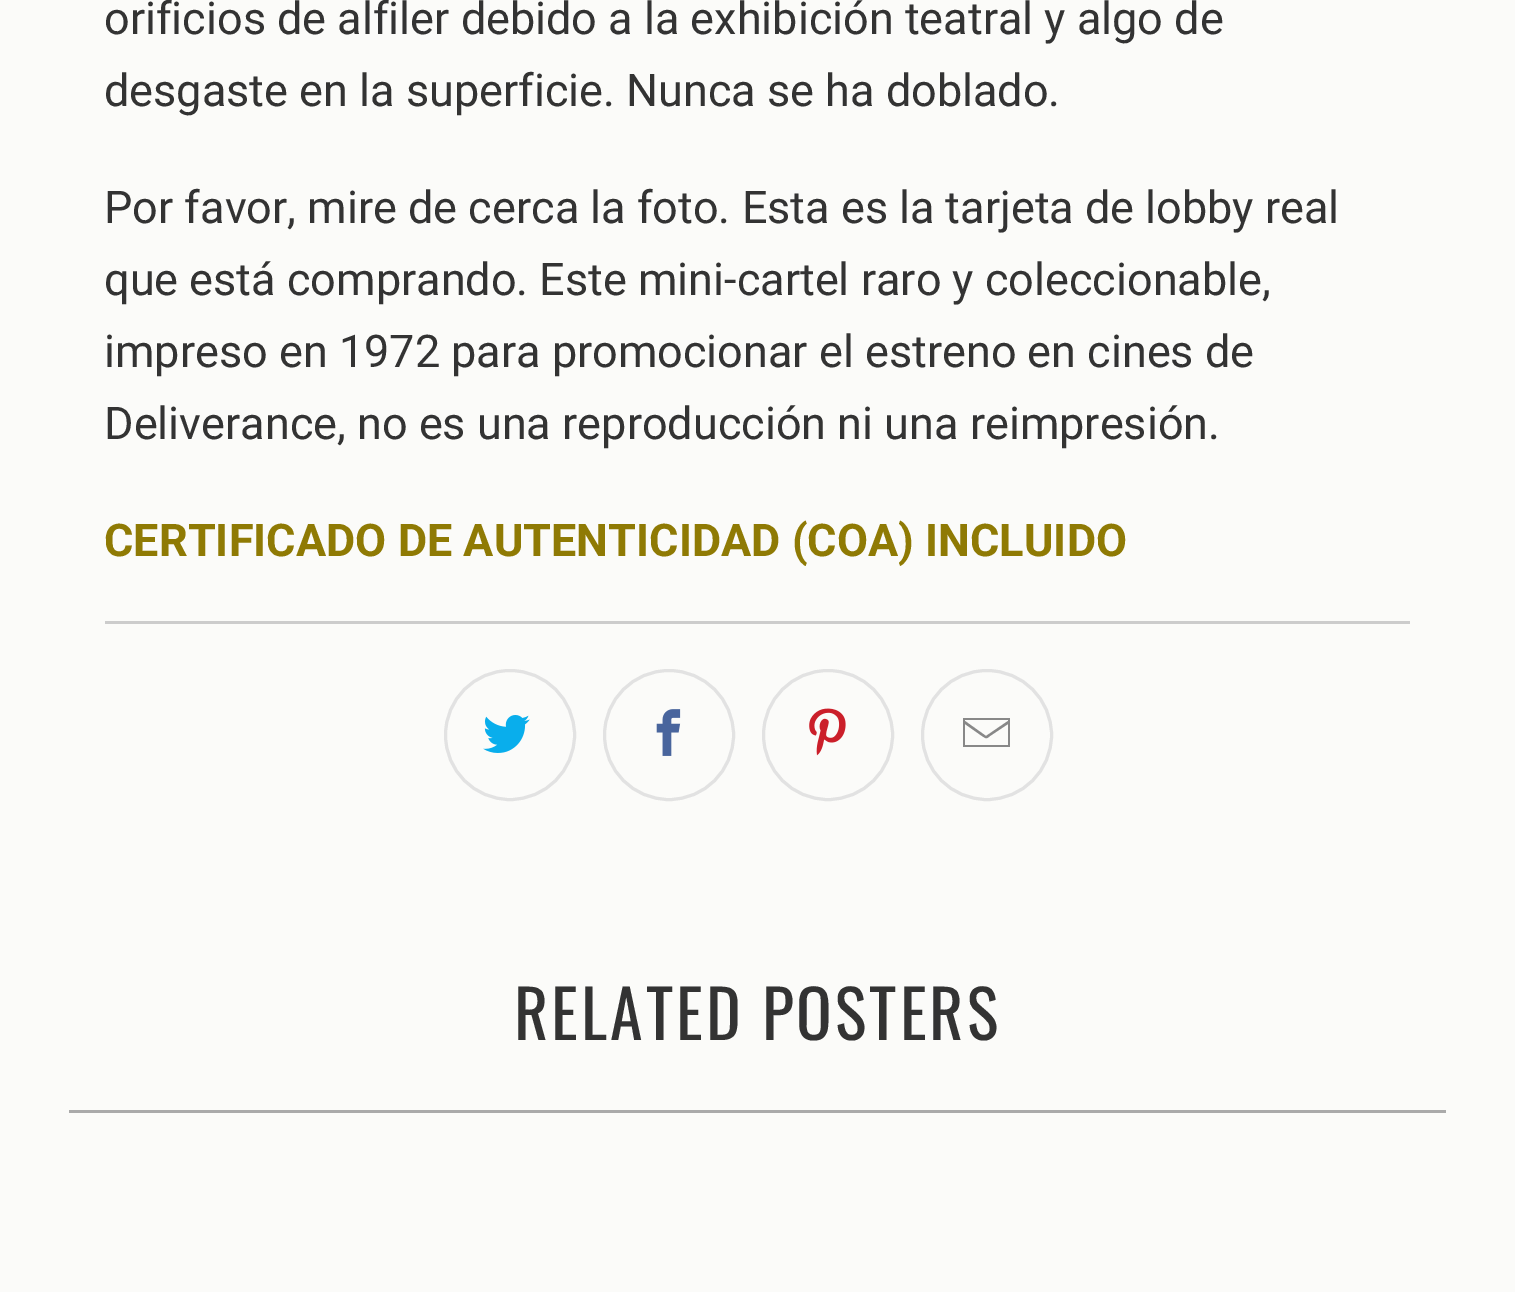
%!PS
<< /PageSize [1515 1292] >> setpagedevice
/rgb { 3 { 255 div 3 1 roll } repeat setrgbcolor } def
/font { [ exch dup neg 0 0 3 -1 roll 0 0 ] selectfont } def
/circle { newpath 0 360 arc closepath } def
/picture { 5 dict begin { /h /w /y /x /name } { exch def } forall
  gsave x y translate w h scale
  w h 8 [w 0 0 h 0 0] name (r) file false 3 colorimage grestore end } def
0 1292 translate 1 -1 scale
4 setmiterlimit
251 251 249 rgb
0 0 1515 1292 rectfill
204 204 204 rgb
105 621 1305 3 rectfill
226 226 226 rgb
3 setlinewidth
510 735 64.5 circle stroke
(img/1.rgb) 483 715 47 38 picture
669 735 64.5 circle stroke
(img/2.rgb) 656 709 25 47 picture
828 735 64.5 circle stroke
(img/3.rgb) 809 708 37 48 picture
987 735 64.5 circle stroke
136 136 136 rgb
963 718 moveto 963 747 lineto 1010 747 lineto 1010 718 lineto closepath 1008 720 moveto 1008 721 lineto 986 736 lineto 965 721 lineto 965 720 lineto closepath 965 745 moveto 965 724 lineto 982 736 lineto 987 739 986 739 990 736 curveto 1008 724 lineto 1008 745 lineto closepath fill
170 170 170 rgb
69 1110 1377 3 rectfill
/Roboto-Regular 45 font
51 51 51 rgb
[
  [(orificios de alfiler debido a la exhibición teatral y algo de) 104 34]
  [(desgaste en la superficie. Nunca se ha doblado.) 104 106]
  [(Por favor, mire de cerca la foto. Esta es la tarjeta de lobby real) 104 223]
  [(que está comprando. Este mini-cartel raro y coleccionable,) 104 295]
  [(impreso en 1972 para promocionar el estreno en cines de) 104 367]
  [(Deliverance, no es una reproducción ni una reimpresión.) 104 439]
] { aload pop moveto show } forall
/Roboto-Bold 45 font
143 122 4 rgb
104 556 moveto (CERTIFICADO DE AUTENTICIDAD \(COA\) INCLUIDO) show
/Oswald-Regular 66 font
51 51 51 rgb
514 1040 moveto 3 0 (RELATED POSTERS) ashow
showpage
